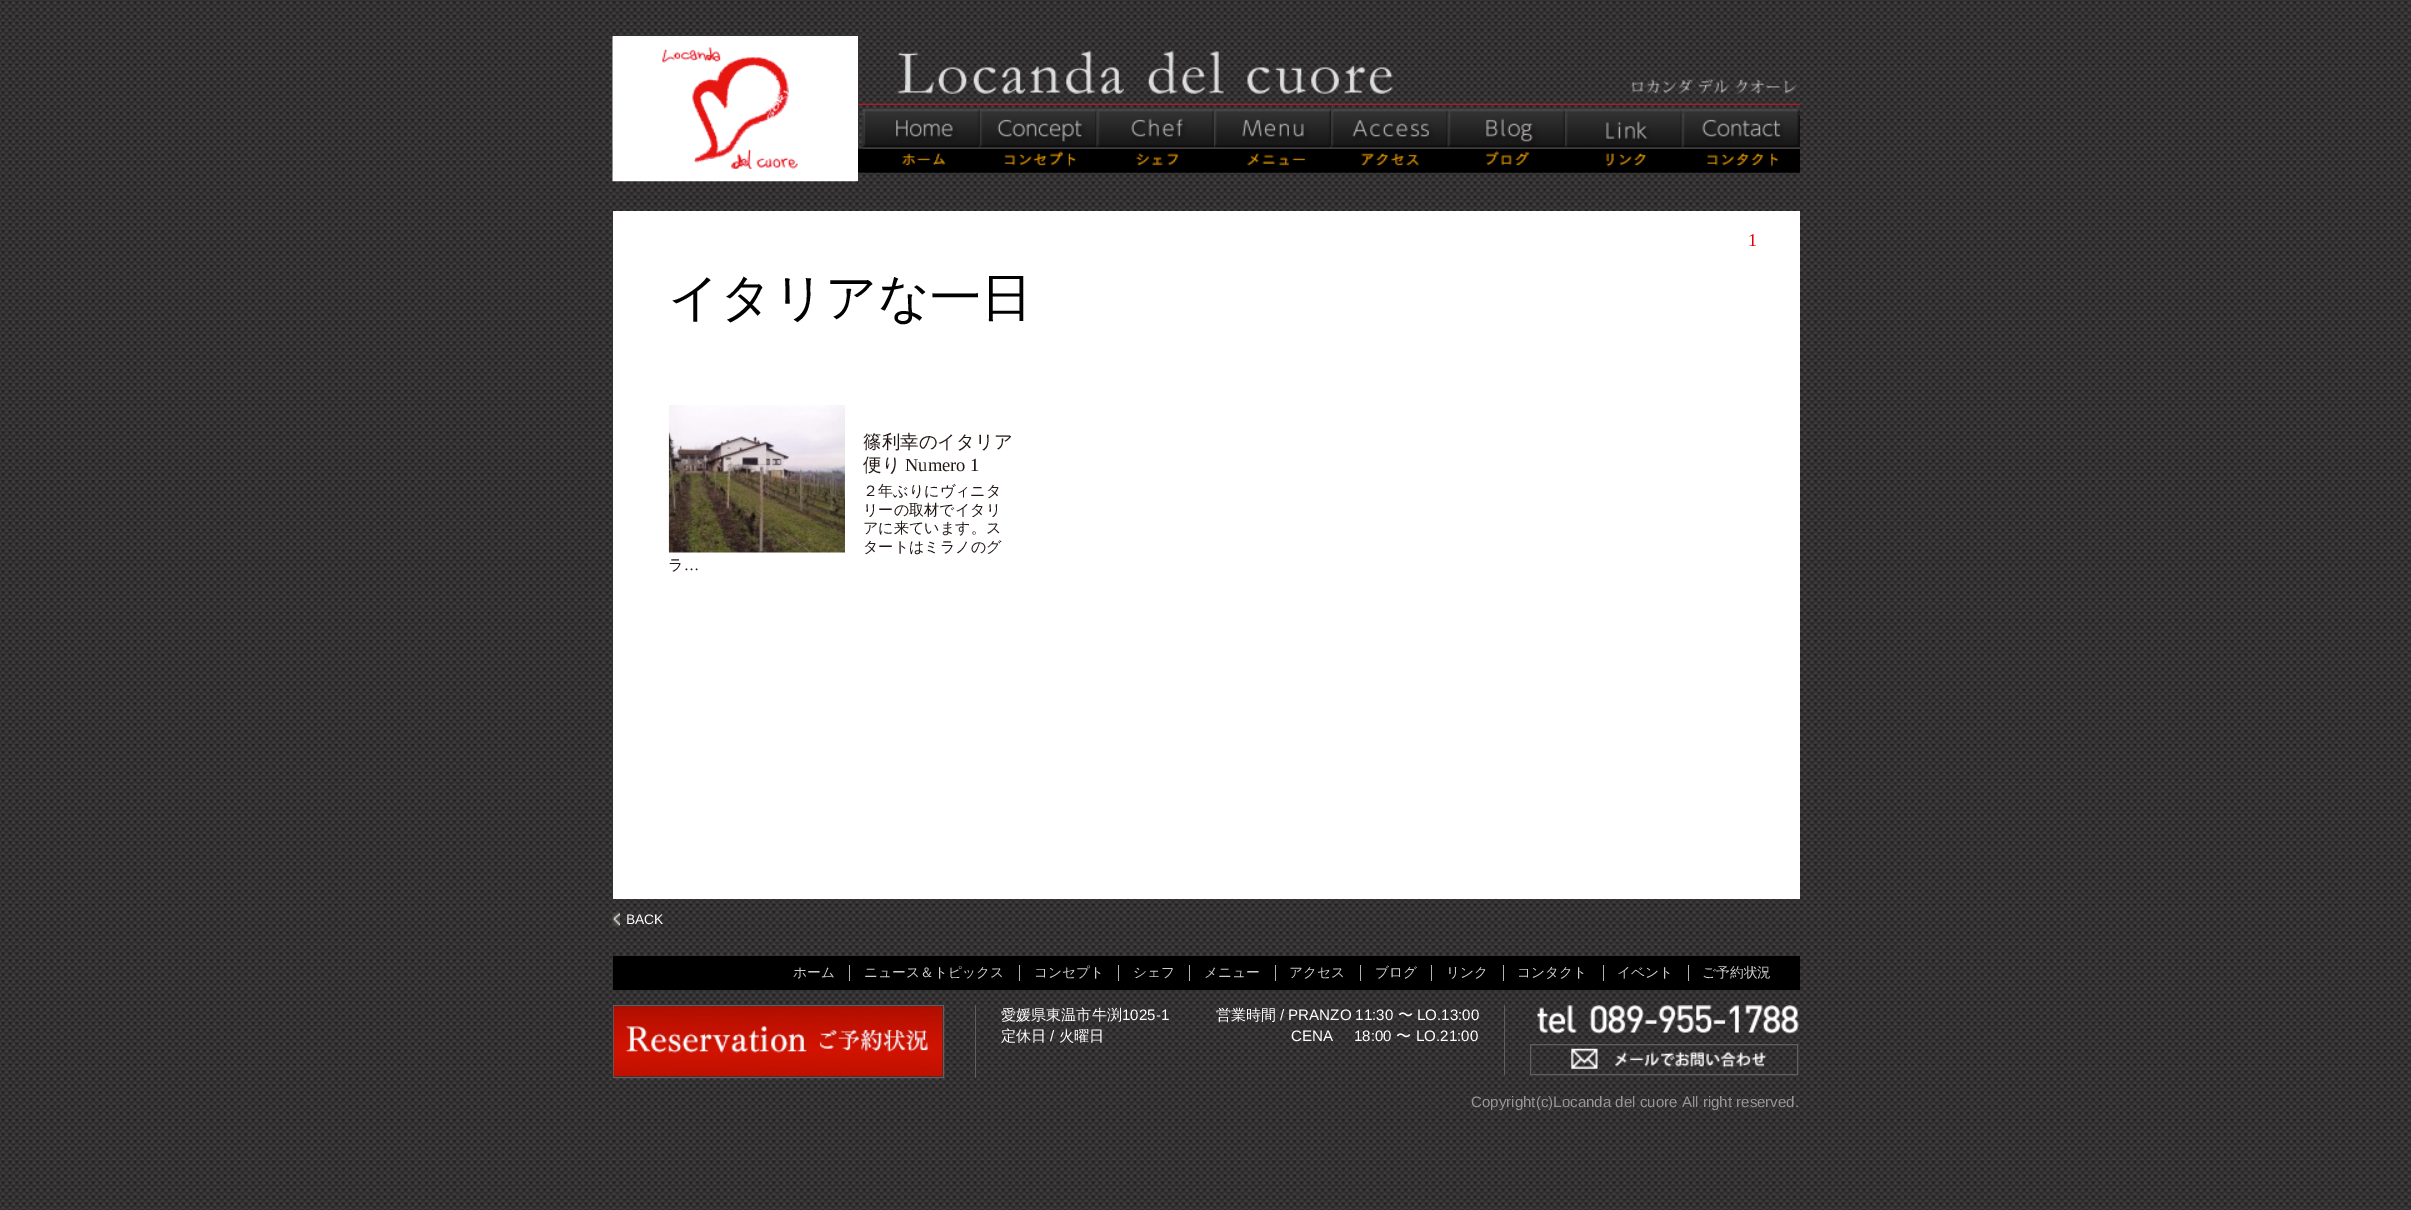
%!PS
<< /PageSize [2411 1210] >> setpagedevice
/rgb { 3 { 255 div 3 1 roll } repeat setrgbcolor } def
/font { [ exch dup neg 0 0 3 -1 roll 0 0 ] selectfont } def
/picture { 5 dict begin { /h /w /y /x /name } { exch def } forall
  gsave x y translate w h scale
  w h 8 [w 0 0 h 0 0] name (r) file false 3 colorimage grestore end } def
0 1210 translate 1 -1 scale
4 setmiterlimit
255 255 255 rgb
0 0 2411 1210 rectfill
(img/1.rgb) 0 0 2411 1210 picture
(img/2.rgb) 612 103 1188 70 picture
613 36 245 145 rectfill
(img/3.rgb) 612 36 246 146 picture
(img/4.rgb) 897 51 900 43 picture
(img/5.rgb) 862 108 120 65 picture
(img/6.rgb) 981 108 117 65 picture
(img/7.rgb) 1097 108 118 65 picture
(img/8.rgb) 1215 108 118 65 picture
(img/9.rgb) 1332 108 117 65 picture
(img/10.rgb) 1448 108 119 65 picture
(img/11.rgb) 1566 108 117 65 picture
(img/12.rgb) 1682 108 118 65 picture
613 211 1187 688 rectfill
(img/13.rgb) 668 405 177 148 picture
(img/14.rgb) 612 912 8 15 picture
[
  [613 956 1187 34 0 0 0]
  [849 965 1 16 179 179 179]
  [1019 965 1 16 179 179 179]
  [1118 965 1 16 179 179 179]
  [1189 965 1 16 179 179 179]
  [1275 965 1 16 179 179 179]
  [1360 965 1 16 179 179 179]
  [1431 965 1 16 179 179 179]
  [1503 965 1 16 179 179 179]
  [1603 965 1 16 179 179 179]
  [1688 965 1 16 179 179 179]
  [975 1005 1 73 96 96 96]
] { aload pop rgb rectfill } forall
613.5 1005.5 330 72 rectstroke
(img/15.rgb) 613 1006 330 71 picture
1504 1005 1 70 rectfill
(img/16.rgb) 1537 1005 262 29 picture
1530.5 1044.5 267 30 rectstroke
(img/17.rgb) 1571 1048 196 21 picture
/LiberationSerif-Regular 18 font
225 0 0 rgb
1748 246 moveto (1) show
/WenQuanYiZenHei-Medium 51.25 font
1 1 1 rgb
668 315 moveto (イタリアな一日) show
/WenQuanYiZenHei-Medium 18.5 font
34 24 21 rgb
863 448 moveto (篠利幸のイタリア) show
863 471 moveto (便り) show
/LiberationSerif-Regular 18.5 font
905 471 moveto (Numero 1) show
/WenQuanYiZenHei-Medium 15.1 font
[
  [(２年ぶりにヴィニタ) 863 496]
  [(リーの取材でイタリ) 863 515]
  [(アに来ています。ス) 863 533]
  [(タートはミラノのグ) 863 552]
  [(ラ) 668 570]
] { aload pop moveto show } forall
/LiberationSerif-Regular 15.1 font
684 570 moveto (…) show
/LiberationSans-Regular 13.75 font
255 255 255 rgb
626 924 moveto (BACK) show
/WenQuanYiZenHei-Medium 13.75 font
205 205 205 rgb
[
  [(ホーム) 793 977]
  [(ニュース＆トピックス) 864 977]
  [(コンセプト) 1034 977]
  [(シェフ) 1133 977]
  [(メニュー) 1204 977]
  [(アクセス) 1289 977]
  [(ブログ) 1375 977]
  [(リンク) 1446 977]
  [(コンタクト) 1517 977]
  [(イベント) 1617 977]
  [(ご予約状況) 1702 977]
] { aload pop moveto show } forall
/WenQuanYiZenHei-Medium 15.1 font
255 255 255 rgb
1001 1020 moveto (愛媛県東温市牛渕) show
/LiberationSans-Regular 15.1 font
1122 1020 moveto (1025-1) show
/WenQuanYiZenHei-Medium 15.1 font
1001 1041 moveto (定休日) show
/LiberationSans-Regular 15.1 font
1050 1041 moveto (/) show
/WenQuanYiZenHei-Medium 15.1 font
1059 1041 moveto (火曜日) show
1216 1020 moveto (営業時間) show
/LiberationSans-Regular 15.1 font
1280 1020 moveto (/ PRANZO 11:30) show
/WenQuanYiZenHei-Medium 15.1 font
1398 1020 moveto (〜) show
/LiberationSans-Regular 15.1 font
1417 1020 moveto (LO.13:00) show
1291 1041 moveto (CENA     18:00) show
/WenQuanYiZenHei-Medium 15.1 font
1396 1041 moveto (〜) show
/LiberationSans-Regular 15.1 font
1416 1041 moveto (LO.21:00) show
151 151 151 rgb
1471 1107 moveto (Copyright\(c\)Locanda del cuore All right reserved.) show
showpage
